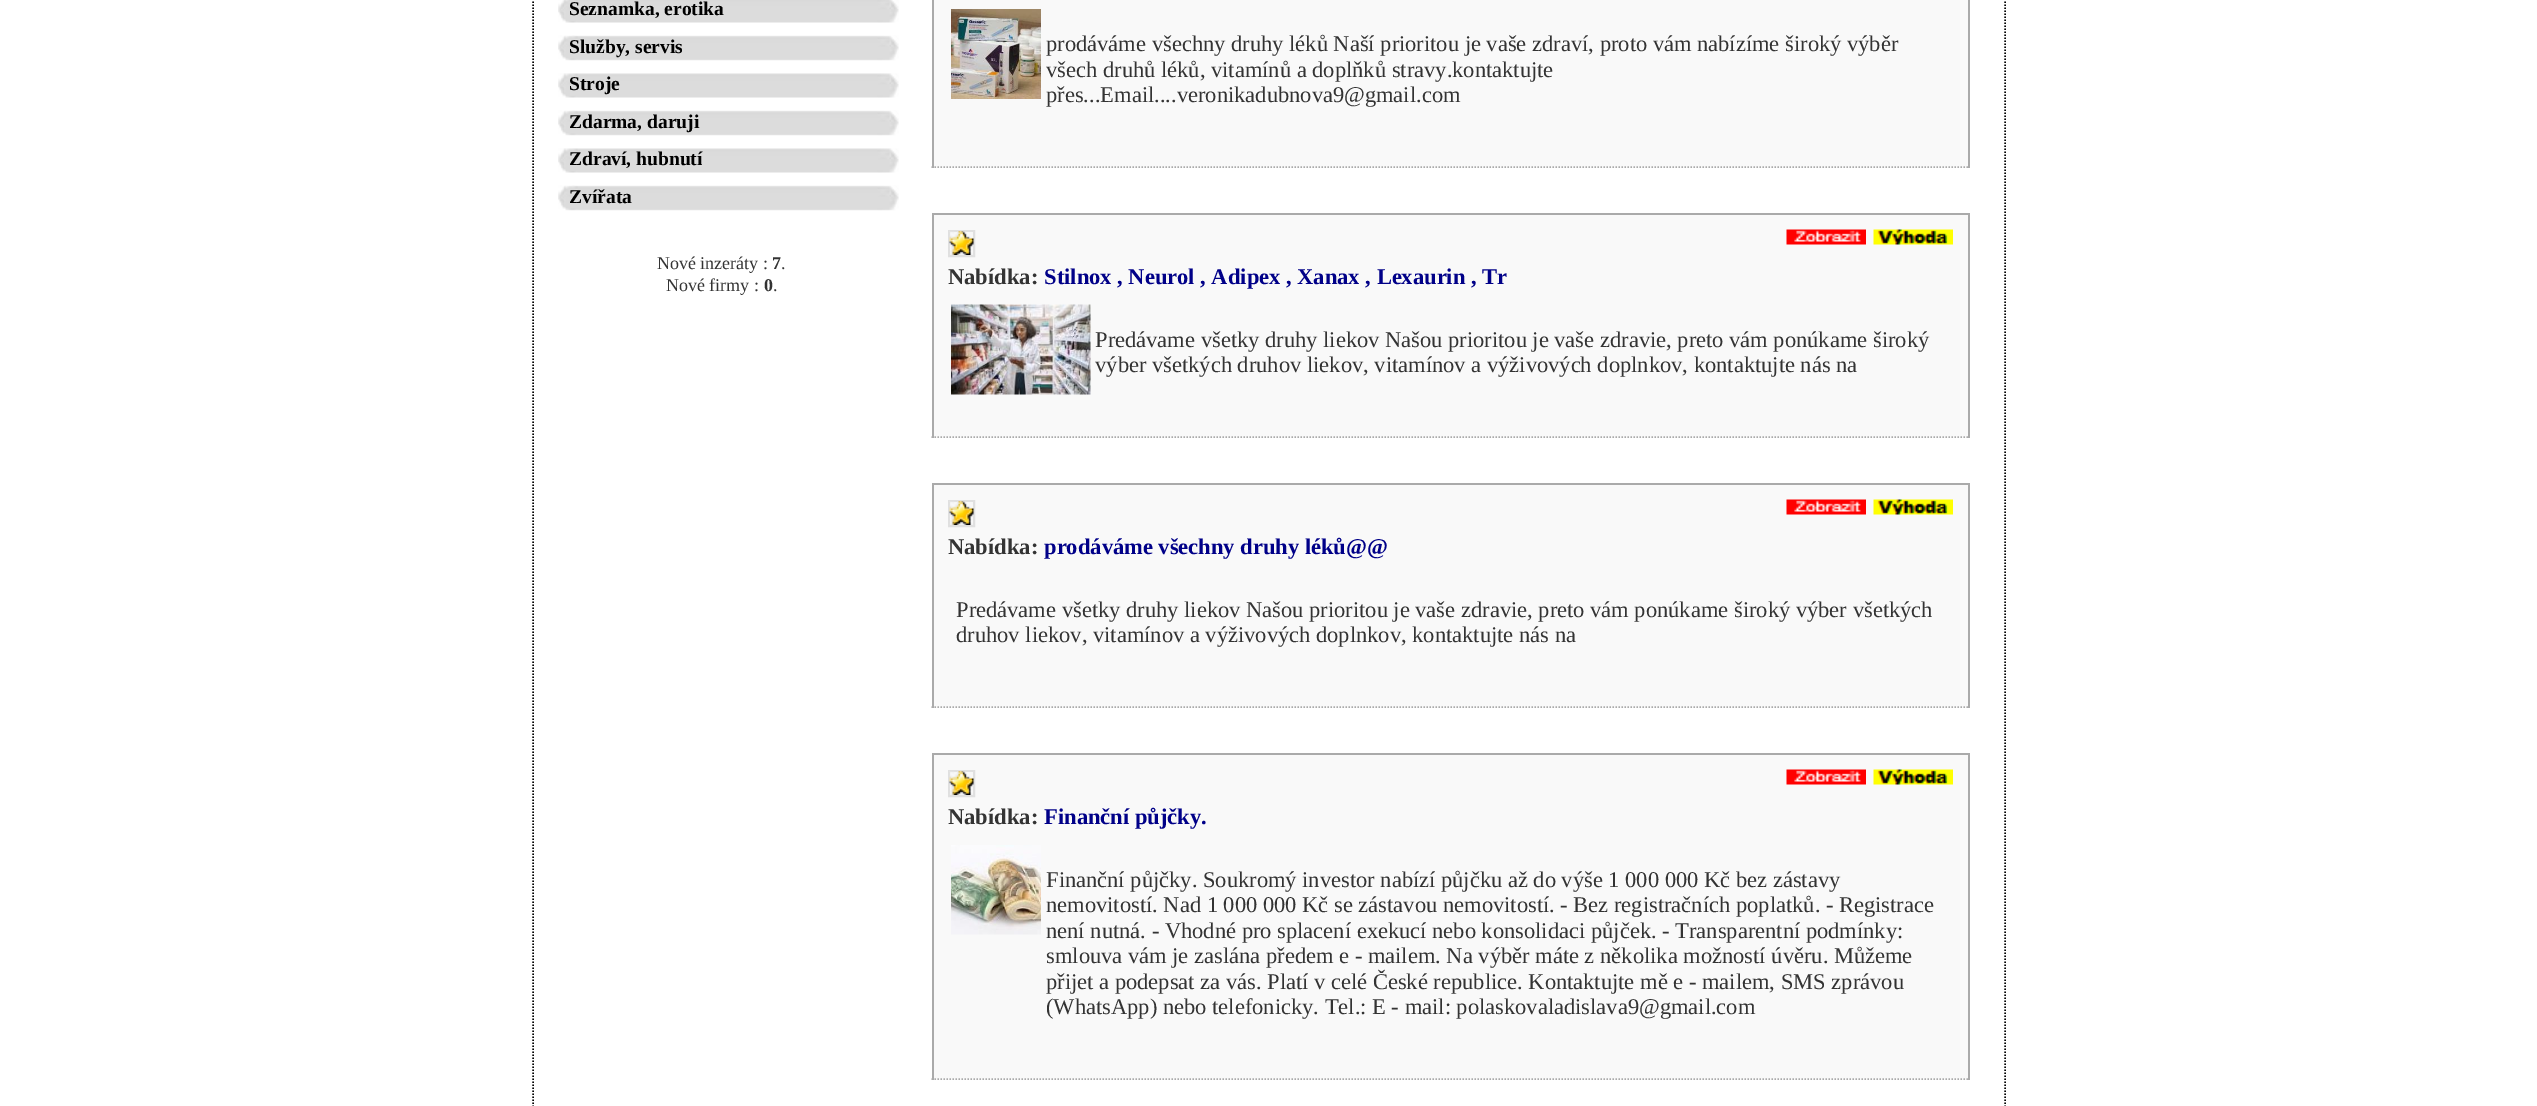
%!PS
<< /PageSize [2537 1106] >> setpagedevice
/rgb { 3 { 255 div 3 1 roll } repeat setrgbcolor } def
/font { [ exch dup neg 0 0 3 -1 roll 0 0 ] selectfont } def
/picture { 5 dict begin { /h /w /y /x /name } { exch def } forall
  gsave x y translate w h scale
  w h 8 [w 0 0 h 0 0] name (r) file false 3 colorimage grestore end } def
0 1106 translate 1 -1 scale
4 setmiterlimit
255 255 255 rgb
0 0 2537 1106 rectfill
0 0 0 rgb
1.5 setlinewidth
[1.5 1.5] 0 setdash
2005 -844.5 moveto 2005 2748 lineto stroke
533 -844.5 moveto 533 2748 lineto stroke
(img/1.rgb) 558 0 341 23 picture
(img/2.rgb) 558 35 341 26 picture
(img/3.rgb) 558 73 341 25 picture
(img/2.rgb) 558 110 341 26 picture
(img/3.rgb) 558 148 341 25 picture
(img/2.rgb) 558 185 341 26 picture
249 249 249 rgb
934 0 1034 168 rectfill
170 170 170 rgb
1968 0 2 168 rectfill
931.5 167 moveto 1969.5 167 lineto stroke
932 0 2 168 rectfill
(img/4.rgb) 951 9 90 90 picture
[
  [934 215 1034 223 249 249 249]
  [932 213 1038 2 170 170 170]
  [1968 213 2 225 170 170 170]
] { aload pop rgb rectfill } forall
931.5 437 moveto 1969.5 437 lineto stroke
932 213 2 225 rectfill
224 224 224 rgb
2 setlinewidth
[] 0 setdash
949 231 25 25 rectstroke
(img/5.rgb) 949 231 25 24 picture
(img/6.rgb) 1786 229 80 16 picture
(img/7.rgb) 1873 229 80 16 picture
(img/8.rgb) 951 304 140 91 picture
[
  [934 485 1034 223 249 249 249]
  [932 483 1038 2 170 170 170]
  [1968 483 2 225 170 170 170]
] { aload pop rgb rectfill } forall
1.5 setlinewidth
[1.5 1.5] 0 setdash
931.5 707 moveto 1969.5 707 lineto stroke
932 483 2 225 rectfill
224 224 224 rgb
2 setlinewidth
[] 0 setdash
949 501 25 25 rectstroke
(img/5.rgb) 949 501 25 24 picture
(img/6.rgb) 1786 499 80 16 picture
(img/7.rgb) 1873 499 80 16 picture
[
  [934 755 1034 325 249 249 249]
  [932 753 1038 2 170 170 170]
  [1968 753 2 327 170 170 170]
] { aload pop rgb rectfill } forall
1.5 setlinewidth
[1.5 1.5] 0 setdash
931.5 1079 moveto 1969.5 1079 lineto stroke
932 753 2 327 rectfill
224 224 224 rgb
2 setlinewidth
[] 0 setdash
949 771 25 25 rectstroke
(img/5.rgb) 949 771 25 24 picture
(img/6.rgb) 1786 769 80 16 picture
(img/7.rgb) 1873 769 80 16 picture
(img/9.rgb) 951 845 90 90 picture
/LiberationSerif-Bold 19.5 font
0 0 0 rgb
[
  [(Seznamka, erotika) 569 15]
  [(Služby, servis) 569 53]
  [(Stroje) 569 90]
  [(Zdarma, daruji) 569 128]
  [(Zdraví, hubnutí) 569 165]
  [(Zvířata) 569 203]
] { aload pop moveto show } forall
/LiberationSerif-Regular 18 font
51 51 51 rgb
657 269 moveto (Nové inzeráty :) show
/LiberationSerif-Bold 18 font
772 269 moveto (7) show
/LiberationSerif-Regular 18 font
781 269 moveto (.) show
666 291 moveto (Nové firmy :) show
/LiberationSerif-Bold 18 font
764 291 moveto (0) show
/LiberationSerif-Regular 18 font
773 291 moveto (.) show
/LiberationSerif-Regular 22.5 font
[
  [(prodáváme všechny druhy léků Naší prioritou je vaše zdraví, proto vám nabízíme široký výběr) 1046 51]
  [(všech druhů léků, vitamínů a doplňků stravy.kontaktujte) 1046 77]
  [(přes...Email....veronikadubnova9@gmail.com) 1046 102]
] { aload pop moveto show } forall
/LiberationSerif-Bold 22.5 font
948 284 moveto (Nabídka:) show
0 0 136 rgb
1044 284 moveto (Stilnox , Neurol , Adipex , Xanax , Lexaurin , Tr) show
/LiberationSerif-Regular 22.5 font
51 51 51 rgb
1095 347 moveto (Predávame všetky druhy liekov Našou prioritou je vaše zdravie, preto vám ponúkame široký) show
1095 372 moveto (výber všetkých druhov liekov, vitamínov a výživových doplnkov, kontaktujte nás na) show
/LiberationSerif-Bold 22.5 font
948 554 moveto (Nabídka:) show
0 0 136 rgb
1044 554 moveto (prodáváme všechny druhy léků@@) show
/LiberationSerif-Regular 22.5 font
51 51 51 rgb
956 617 moveto (Predávame všetky druhy liekov Našou prioritou je vaše zdravie, preto vám ponúkame široký výber všetkých) show
956 642 moveto (druhov liekov, vitamínov a výživových doplnkov, kontaktujte nás na) show
/LiberationSerif-Bold 22.5 font
948 824 moveto (Nabídka:) show
0 0 136 rgb
1044 824 moveto (Finanční půjčky.) show
/LiberationSerif-Regular 22.5 font
51 51 51 rgb
[
  [(Finanční půjčky. Soukromý investor nabízí půjčku až do výše 1 000 000 Kč bez zástavy) 1046 887]
  [(nemovitostí. Nad 1 000 000 Kč se zástavou nemovitostí. - Bez registračních poplatků. - Registrace) 1046 912]
  [(není nutná. - Vhodné pro splacení exekucí nebo konsolidaci půjček. - Transparentní podmínky:) 1046 938]
  [(smlouva vám je zaslána předem e - mailem. Na výběr máte z několika možností úvěru. Můžeme) 1046 963]
  [(přijet a podepsat za vás. Platí v celé České republice. Kontaktujte mě e - mailem, SMS zprávou) 1046 989]
  [(\(WhatsApp\) nebo telefonicky. Tel.: E - mail: polaskovaladislava9@gmail.com) 1046 1014]
] { aload pop moveto show } forall
showpage
